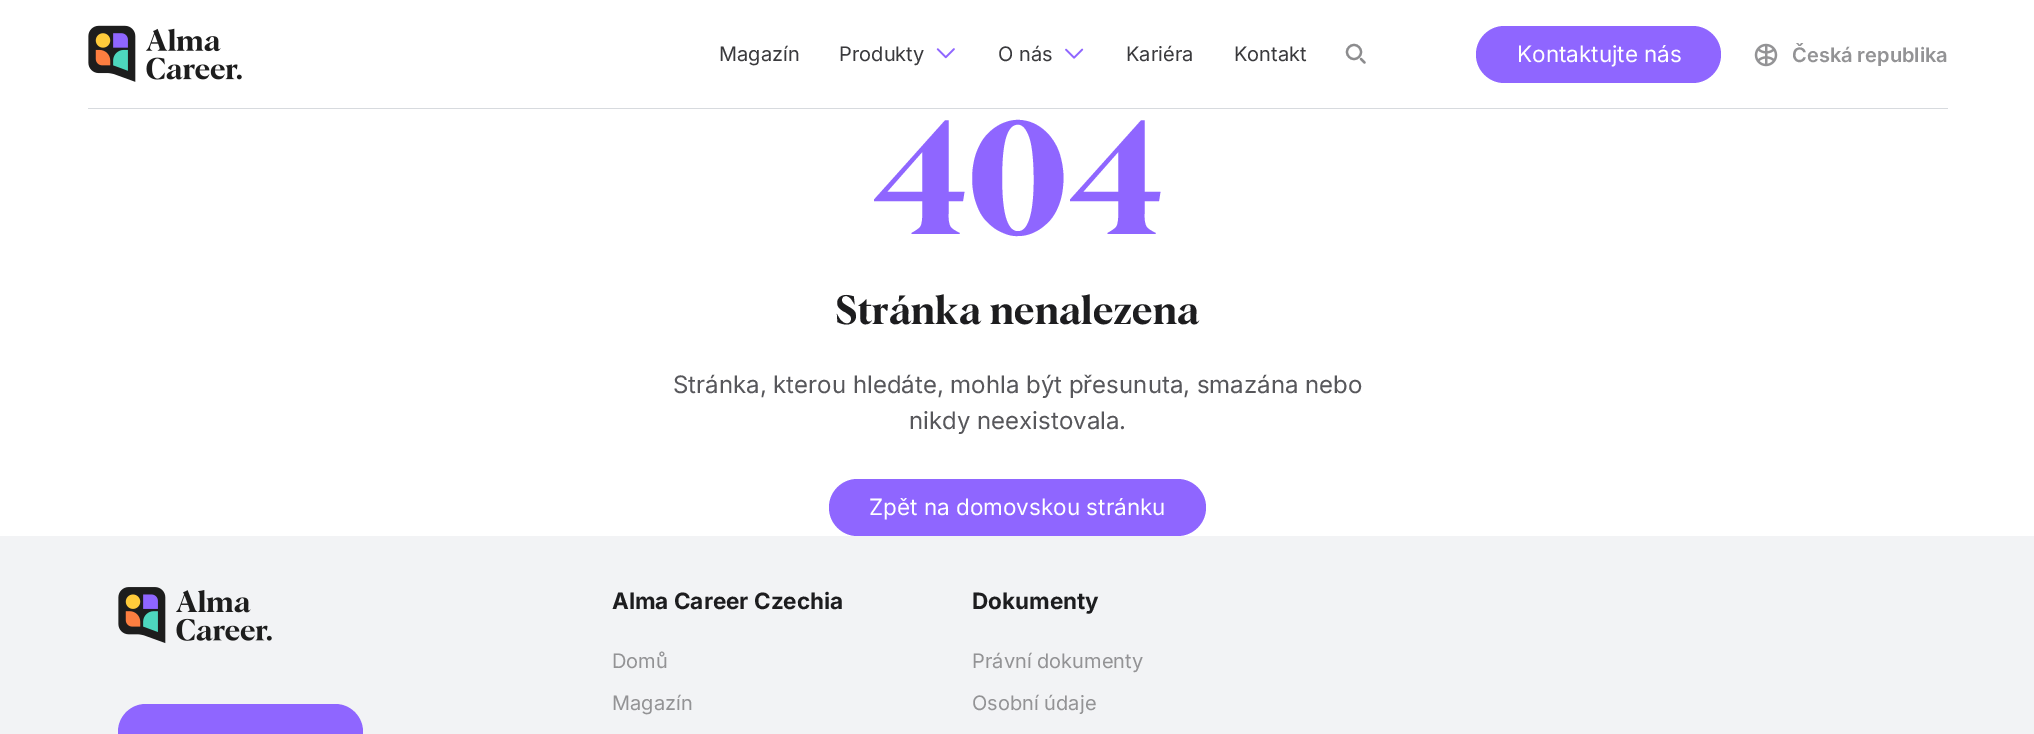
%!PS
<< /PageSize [2034 734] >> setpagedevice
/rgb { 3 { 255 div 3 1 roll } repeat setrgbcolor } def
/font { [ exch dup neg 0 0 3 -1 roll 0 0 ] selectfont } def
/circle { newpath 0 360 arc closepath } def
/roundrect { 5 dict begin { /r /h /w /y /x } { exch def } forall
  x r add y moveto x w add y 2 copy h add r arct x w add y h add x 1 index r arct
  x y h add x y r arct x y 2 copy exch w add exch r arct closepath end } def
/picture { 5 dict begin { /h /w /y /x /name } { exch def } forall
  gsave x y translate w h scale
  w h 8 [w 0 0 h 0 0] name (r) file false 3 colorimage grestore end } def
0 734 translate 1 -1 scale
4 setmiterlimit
255 255 255 rgb
0 0 2034 734 rectfill
(img/1.rgb) 88 25 154 57 picture
(img/2.rgb) 936 48 19 11 picture
(img/3.rgb) 1065 48 19 11 picture
140 140 142 rgb
2.2 setlinewidth
1354 52 7 circle stroke
1 setlinecap
1364.5 62.5 moveto 1361 59 lineto stroke
143 102 255 rgb
1476 26 245 57 28.5 roundrect fill
(img/4.rgb) 1754 43 24 24 picture
215 218 222 rgb
88 108 1860 1 rectfill
143 102 255 rgb
829 479 377 57 28.5 roundrect fill
242 243 245 rgb
0 536 2034 198 rectfill
(img/5.rgb) 118 587 154 57 picture
143 102 255 rgb
118 704 245 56 28 roundrect fill
/Inter-Regular 20 font
58 58 61 rgb
[
  [(Magazín) 719 61]
  [(Produkty) 839 61]
  [(O nás) 998 61]
  [(Kariéra) 1126 61]
  [(Kontakt) 1234 61]
] { aload pop moveto show } forall
/Inter-Regular 22.5 font
255 255 255 rgb
1517 62 moveto (Kontaktujte nás) show
/Inter-SemiBold 20 font
147 147 149 rgb
1792 62 moveto (Česká republika) show
/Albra-Bold 160 font
143 102 255 rgb
871 234 moveto (404) show
/Albra-SemiBold 40 font
29 29 31 rgb
835 324 moveto (Stránka nenalezena) show
/Inter-Regular 24 font
87 87 91 rgb
673 393 moveto (Stránka, kterou hledáte, mohla být přesunuta, smazána nebo) show
909 429 moveto (nikdy neexistovala.) show
/Inter-Regular 22.5 font
255 255 255 rgb
869 515 moveto (Zpět na domovskou stránku) show
/Inter-Bold 22.5 font
29 29 31 rgb
612 609 moveto (Alma Career Czechia) show
/Inter-Regular 20 font
147 147 149 rgb
612 668 moveto (Domů) show
612 710 moveto (Magazín) show
/Inter-Bold 22.5 font
29 29 31 rgb
972 609 moveto (Dokumenty) show
/Inter-Regular 20 font
147 147 149 rgb
972 668 moveto (Právní dokumenty) show
972 710 moveto (Osobní údaje) show
showpage
